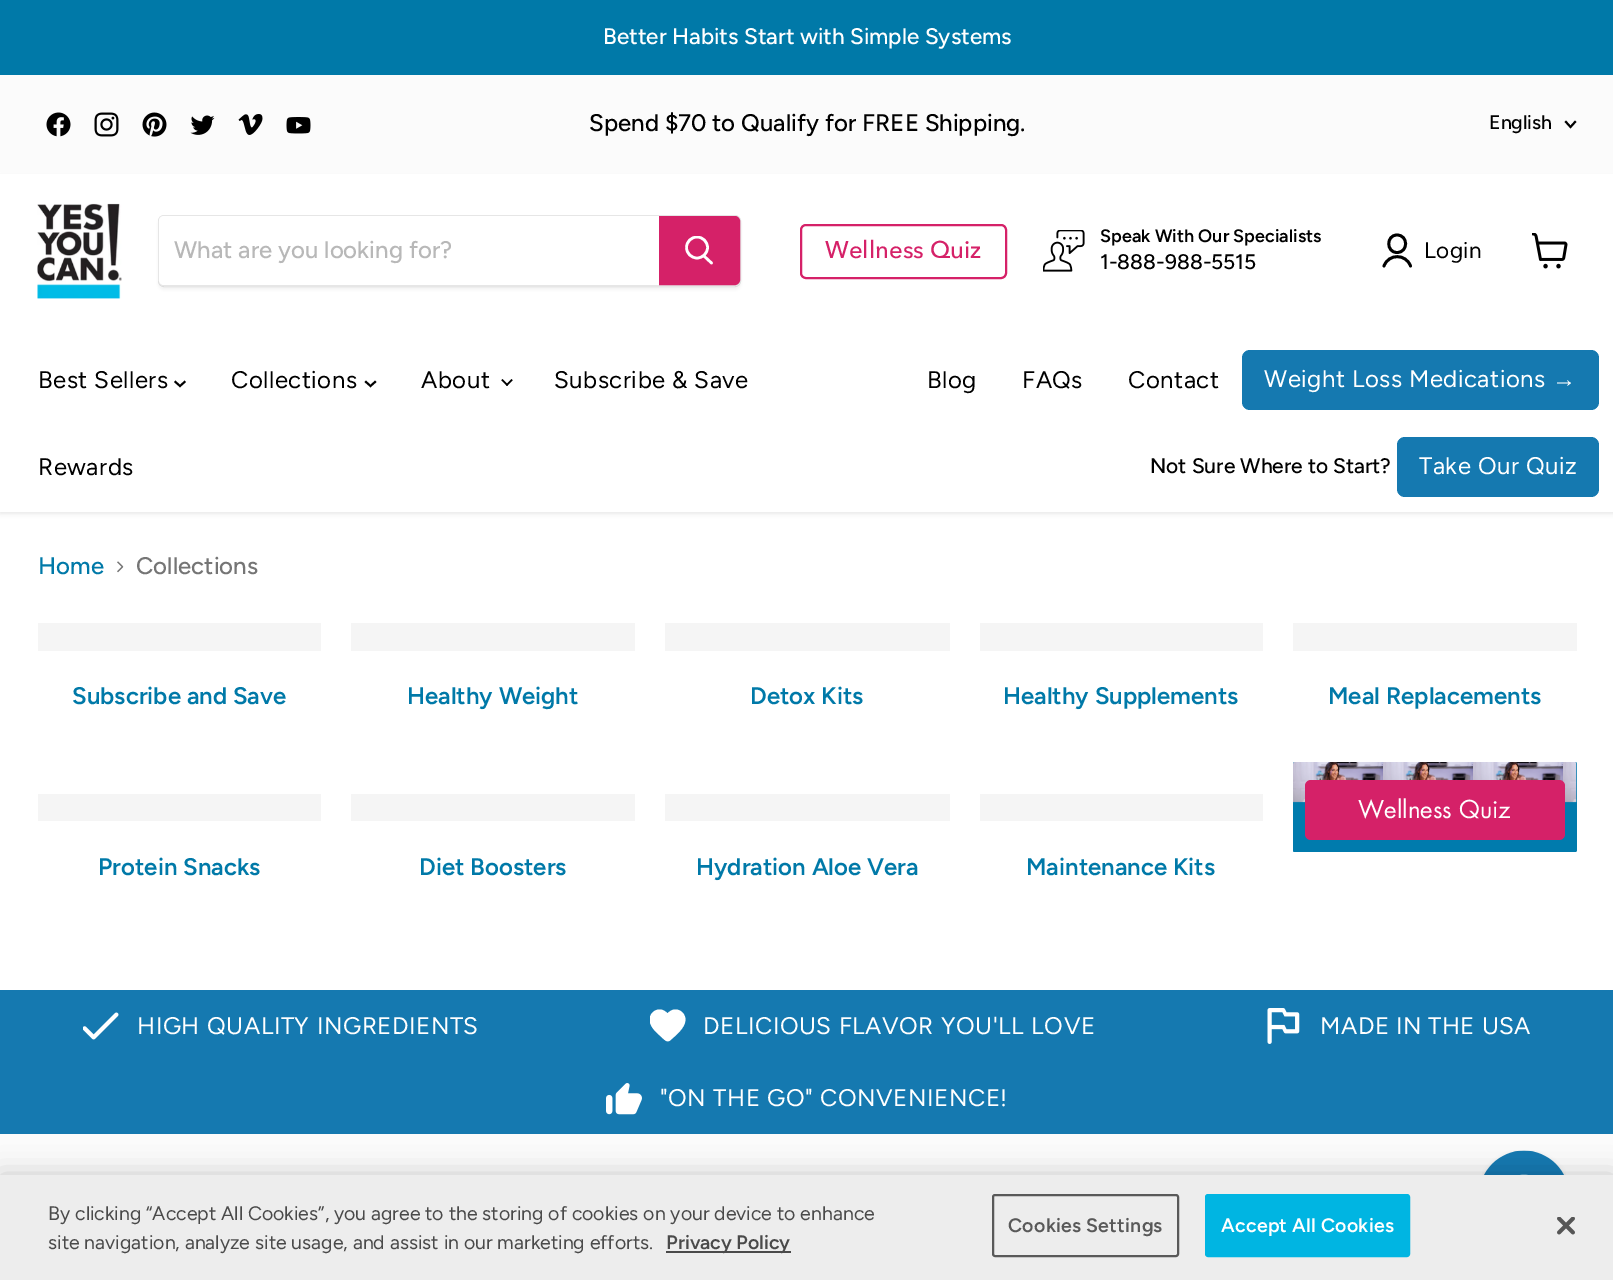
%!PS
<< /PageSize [1613 1280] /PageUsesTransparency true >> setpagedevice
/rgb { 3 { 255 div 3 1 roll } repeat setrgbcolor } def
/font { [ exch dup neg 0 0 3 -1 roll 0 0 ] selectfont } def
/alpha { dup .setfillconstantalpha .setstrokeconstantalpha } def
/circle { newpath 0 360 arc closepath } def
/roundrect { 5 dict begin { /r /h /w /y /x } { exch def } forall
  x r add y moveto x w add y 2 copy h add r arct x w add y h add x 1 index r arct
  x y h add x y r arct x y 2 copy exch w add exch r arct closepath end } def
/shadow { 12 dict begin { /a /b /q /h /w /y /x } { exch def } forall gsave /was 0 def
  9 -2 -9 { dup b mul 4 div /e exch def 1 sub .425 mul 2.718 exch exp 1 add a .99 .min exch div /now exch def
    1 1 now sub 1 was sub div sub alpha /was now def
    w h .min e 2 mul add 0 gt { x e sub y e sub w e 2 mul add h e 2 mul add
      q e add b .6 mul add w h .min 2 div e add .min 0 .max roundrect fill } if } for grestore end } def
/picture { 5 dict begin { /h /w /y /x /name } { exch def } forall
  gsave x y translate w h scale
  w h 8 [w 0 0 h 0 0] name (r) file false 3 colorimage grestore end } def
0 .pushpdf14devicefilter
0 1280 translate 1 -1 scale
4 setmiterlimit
255 255 255 rgb
0 0 1613 1280 rectfill
0 121 168 rgb
0 0 1613 75 rectfill
128 128 128 rgb
0 176 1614 337 0 3 0.25 shadow
251 251 251 rgb
0 75 1613 97 rectfill
(img/1.rgb) 46 112 25 25 picture
(img/2.rgb) 94 112 25 25 picture
(img/3.rgb) 142 112 25 25 picture
(img/4.rgb) 190 115 25 20 picture
(img/5.rgb) 238 114 25 21 picture
(img/6.rgb) 286 117 25 17 picture
0 0 0 rgb
1.9 setlinewidth
2 setlinecap
1570.5 127 moveto 1575 122 lineto 1570.5 127 moveto 1566 122 lineto stroke
255 255 255 rgb
0 174 1613 338 rectfill
(img/7.rgb) 37 203 85 96 picture
gsave
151 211 moveto 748 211 lineto 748 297 lineto 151 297 lineto closepath 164 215 moveto 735 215 lineto 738.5 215 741 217.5 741 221 curveto 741 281 lineto 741 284.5 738.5 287 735 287 curveto 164 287 lineto 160.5 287 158 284.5 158 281 curveto 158 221 lineto 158 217.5 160.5 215 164 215 curveto closepath eoclip newpath
128 128 128 rgb
158 218 583 72 6 2 0.11 shadow
grestore
0.2 alpha
128 128 128 rgb
2 setlinewidth
0 setlinecap
159 216 581 70 5 roundrect stroke
1 alpha
255 255 255 rgb
164 216 moveto 659 216 lineto 659 285 lineto 164 285 lineto 161 285 159 283 159 280 curveto 159 221 lineto 159 218 161 216 164 216 curveto closepath fill
213 33 104 rgb
660 217 moveto 735 217 lineto 737 217 739 219 739 221 curveto 739 280 lineto 739 282 737 284 735 284 curveto 660 284 lineto closepath gsave fill grestore
stroke
255 255 255 rgb
2.6 setlinewidth
1 setlinecap
711.5 263 moveto 704 256 lineto stroke
gsave
684 236 30 31 rectclip
0 setlinecap
697 247.5 10.5 circle stroke
grestore
213 33 104 rgb
2 setlinewidth
0 setlinecap
801 225 205 53 5 roundrect stroke
(img/8.rgb) 1043 230 42 42 picture
0 0 0 rgb
2.8 setlinewidth
1 setlinecap
1 setlinejoin
1397 252.5 moveto 1408.5 252.5 1408.5 235 1397 235 curveto 1386 235 1386 252.5 1397 252.5 curveto closepath 1410.5 266 moveto 1406 253.5 1388.5 253.5 1384 266 curveto stroke
(img/9.rgb) 1532 233 36 36 picture
1.9 setlinewidth
2 setlinecap
0 setlinejoin
180 386 moveto 184.5 382 lineto 180 386 moveto 175.5 382 lineto stroke
370.5 386 moveto 375 382 lineto 370.5 386 moveto 366 382 lineto stroke
(img/10.rgb) 501 379 12 7 picture
21 121 176 rgb
1242 350 357 60 8 roundrect fill
1397 437 202 60 8 roundrect fill
(img/11.rgb) 117 561 7 12 picture
[
  [38 623 283 28 245 245 245]
  [351 623 284 28 245 245 245]
  [665 623 285 28 245 245 245]
  [980 623 283 28 245 245 245]
  [1293 623 284 28 245 245 245]
] { aload pop rgb rectfill } forall
0 123 173 rgb
1293 762 284 90 1.5 roundrect fill
(img/12.rgb) 1293 762 284 90 picture
213 33 104 rgb
1305 780 260 60 6 roundrect fill
[
  [38 794 283 27 245 245 245]
  [351 794 284 27 245 245 245]
  [665 794 285 27 245 245 245]
  [980 794 283 27 245 245 245]
  [0 990 1613 144 21 121 176]
] { aload pop rgb rectfill } forall
(img/13.rgb) 83 1012 36 28 picture
gsave
650 1008 36 36 rectclip
255 255 255 rgb
670 1040.5 moveto 667 1043 663.5 1039 661.5 1037 curveto 657.5 1033.5 652.5 1029.5 650.5 1024 curveto 646 1013 659.5 1004 667.5 1013.5 curveto 675.5 1004 689 1013 684.5 1024 curveto 682 1030.5 675 1036 670 1040.5 curveto closepath fill
grestore
(img/14.rgb) 1267 1008 33 36 picture
(img/15.rgb) 606 1083 36 32 picture
251 251 251 rgb
0 1134 1613 41 rectfill
(img/16.rgb) 1482 1150 84 25 picture
0 0 0 rgb
0 1175 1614 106 0 13.5 0.2 shadow
237 237 237 rgb
0 1175 1613 105 rectfill
74 74 74 rgb
666 1251 125 2 rectfill
89 89 89 rgb
2 setlinewidth
0 setlinecap
993 1195 185 61 2 roundrect stroke
0 181 226 rgb
1206 1195 203 61 2 roundrect gsave fill grestore
stroke
(img/17.rgb) 1557 1217 18 18 picture
/Figtree-Medium 22.5 font
255 255 255 rgb
603 44 moveto (Better Habits Start with Simple Systems) show
/Figtree-Medium 24 font
0 0 0 rgb
589 131 moveto (Spend $70 to Qualify for FREE Shipping.) show
/Figtree-Medium 19.5 font
1489 129 moveto (English) show
/Figtree-Medium 24 font
184 184 184 rgb
174 258 moveto (What are you looking for?) show
/AvenirNext-Medium 24 font
213 33 104 rgb
825 258 moveto (Wellness Quiz) show
/Figtree-SemiBold 18 font
0 0 0 rgb
1100 242 moveto (Speak With Our Specialists) show
/Figtree-Medium 21 font
1100 269 moveto (1-888-988-5515) show
/Figtree-Regular 22.5 font
1424 258 moveto 0.5 0 (Login) ashow
/Figtree-Regular 24 font
38 388 moveto 0.5 0 (Best Sellers) ashow
231 388 moveto 0.5 0 (Collections) ashow
421 388 moveto 0.5 0 (About) ashow
554 388 moveto 0.5 0 (Subscribe & Save) ashow
38 475 moveto 0.5 0 (Rewards) ashow
927 388 moveto 0.5 0 (Blog) ashow
1022 388 moveto 0.5 0 (FAQs) ashow
1128 388 moveto 0.5 0 (Contact) ashow
255 255 255 rgb
1264 387 moveto 0.5 0 (Weight Loss Medications) ashow
/LiberationSans-Regular 24 font
1552 387 moveto 0.5 0 (→) ashow
/Figtree-Medium 21 font
0 0 0 rgb
1150 473 moveto (Not Sure Where to Start?) show
/Figtree-Regular 24 font
255 255 255 rgb
1419 474 moveto 0.5 0 (Take Our Quiz) ashow
/Figtree-Medium 24 font
0 121 168 rgb
38 574 moveto (Home) show
117 117 117 rgb
136 574 moveto (Collections) show
/Figtree-SemiBold 24 font
0 121 168 rgb
[
  [(Subscribe and Save) 72 704]
  [(Healthy Weight) 407 704]
  [(Detox Kits) 750 704]
  [(Healthy Supplements) 1003 704]
  [(Meal Replacements) 1328 704]
] { aload pop moveto show } forall
/Futura-Regular 24 font
255 255 255 rgb
1358 818 moveto (Wellness Quiz) show
/Figtree-SemiBold 24 font
0 121 168 rgb
[
  [(Protein Snacks) 98 875]
  [(Diet Boosters) 419 875]
  [(Hydration Aloe Vera) 696 875]
  [(Maintenance Kits) 1026 875]
] { aload pop moveto show } forall
/Figtree-Regular 24 font
255 255 255 rgb
137 1034 moveto 1 0 32 0.5 0 (HIGH QUALITY INGREDIENTS) awidthshow
703 1034 moveto 1 0 32 0.5 0 (DELICIOUS FLAVOR YOU'LL LOVE) awidthshow
1320 1034 moveto 0.5 0 (MADE IN THE USA) ashow
660 1106 moveto 0.5 0 32 0.5 0 ("ON THE GO" CONVENIENCE!) awidthshow
/Figtree-Regular 19.5 font
74 74 74 rgb
48 1220 moveto (By clicking “Accept All Cookies”, you agree to the storing of cookies on your device to enhance) show
48 1249 moveto (site navigation, analyze site usage, and assist in our marketing efforts.) show
/Figtree-SemiBold 19.5 font
666 1249 moveto (Privacy Policy) show
89 89 89 rgb
1008 1232 moveto 0.25 0 (Cookies Settings) ashow
255 255 255 rgb
1221 1232 moveto 0.25 0 (Accept All Cookies) ashow
.poppdf14devicefilter showpage
